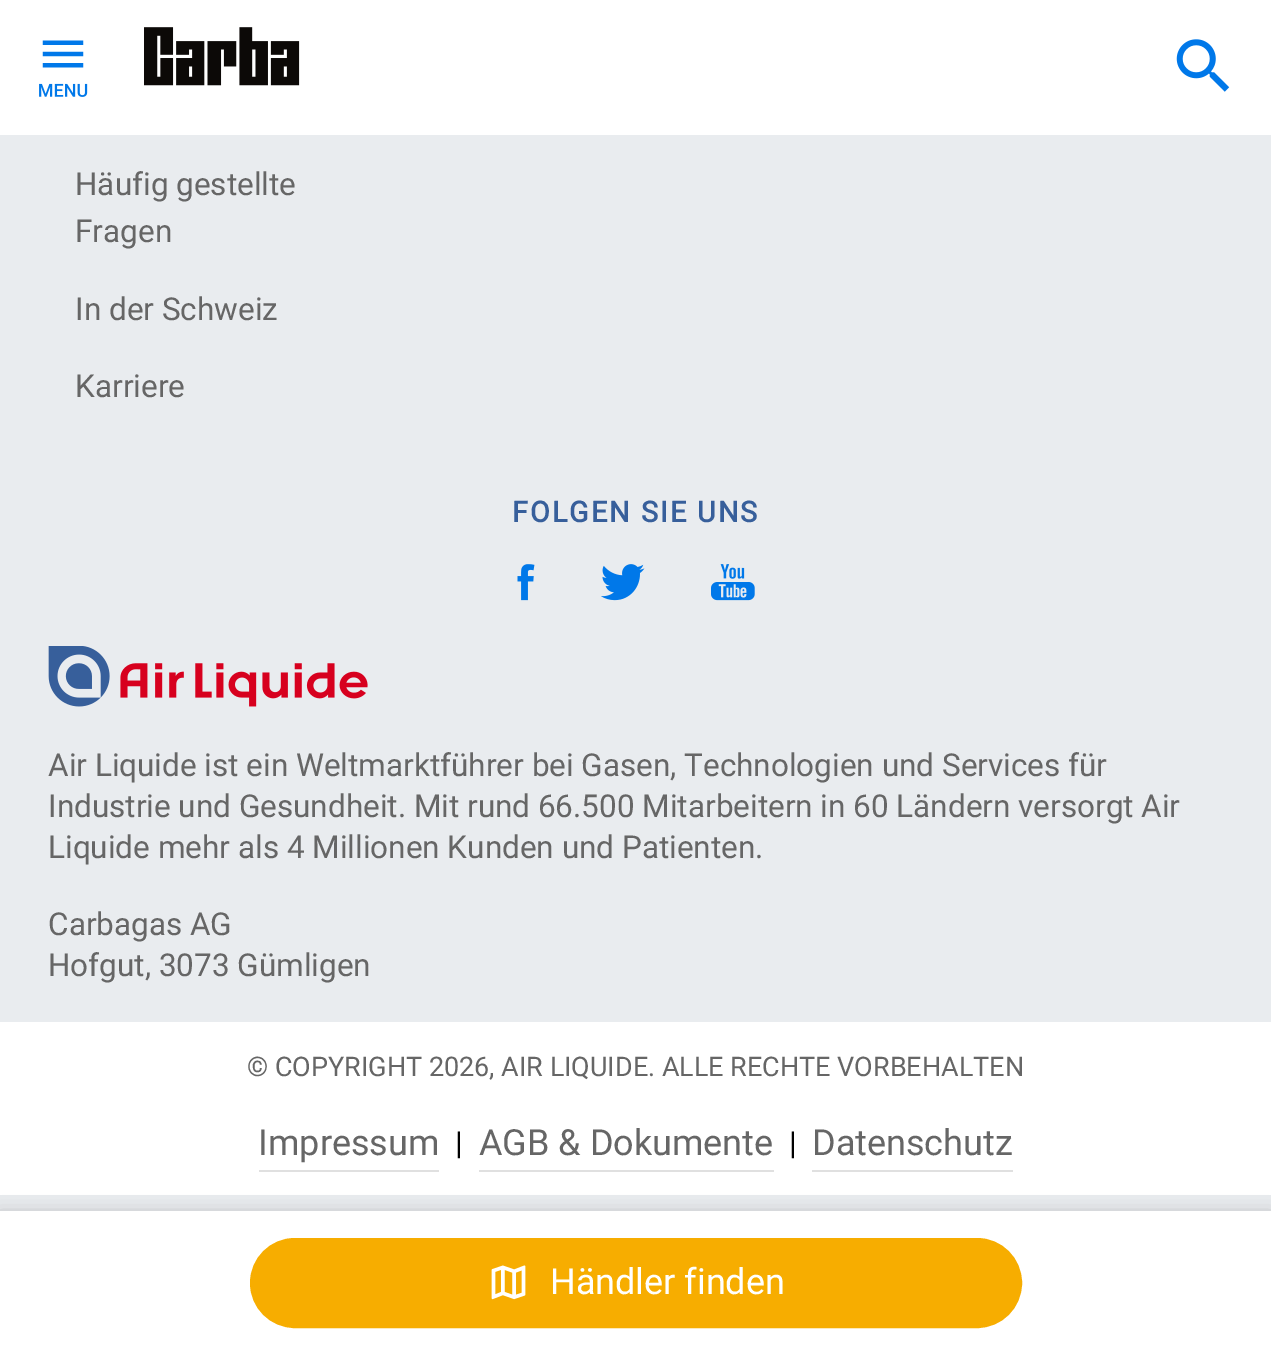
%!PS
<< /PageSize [1271 1354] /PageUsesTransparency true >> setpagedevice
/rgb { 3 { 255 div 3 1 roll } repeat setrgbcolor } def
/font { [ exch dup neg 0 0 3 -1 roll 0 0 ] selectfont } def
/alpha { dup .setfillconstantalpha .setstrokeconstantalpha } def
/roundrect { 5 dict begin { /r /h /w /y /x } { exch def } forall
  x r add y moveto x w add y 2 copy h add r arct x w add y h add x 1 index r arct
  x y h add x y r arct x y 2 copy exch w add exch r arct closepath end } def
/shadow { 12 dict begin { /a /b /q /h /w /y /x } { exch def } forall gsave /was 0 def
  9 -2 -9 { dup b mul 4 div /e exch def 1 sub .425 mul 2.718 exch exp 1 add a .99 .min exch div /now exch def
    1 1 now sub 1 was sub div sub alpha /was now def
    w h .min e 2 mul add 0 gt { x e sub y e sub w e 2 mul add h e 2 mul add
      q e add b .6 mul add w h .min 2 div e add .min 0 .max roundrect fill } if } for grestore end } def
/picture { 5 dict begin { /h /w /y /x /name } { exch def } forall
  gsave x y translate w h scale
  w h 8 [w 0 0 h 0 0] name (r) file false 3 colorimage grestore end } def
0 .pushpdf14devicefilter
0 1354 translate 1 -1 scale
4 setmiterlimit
233 236 239 rgb
0 0 1271 1354 rectfill
(img/1.rgb) 517 564 18 37 picture
(img/2.rgb) 601 564 44 37 picture
(img/3.rgb) 711 564 44 37 picture
(img/4.rgb) 48 646 320 61 picture
[
  [0 1022 1271 173 255 255 255]
  [259 1170 180 2 224 224 224]
  [479 1170 295 2 224 224 224]
  [812 1170 201 2 224 224 224]
  [0 0 1271 135 255 255 255]
] { aload pop rgb rectfill } forall
(img/5.rgb) 39 40 49 57 picture
(img/6.rgb) 144 27 156 59 picture
(img/7.rgb) 1176 39 54 53 picture
0 0 0 rgb
0 1215 1271 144 0 9 0.25 shadow
255 255 255 rgb
0 1211 1271 143 rectfill
247 173 0 rgb
251 1239 770 88 44 roundrect gsave fill grestore
2 setlinewidth
stroke
(img/8.rgb) 491 1265 35 35 picture
/Roboto-Regular 31.5 font
102 102 102 rgb
[
  [(Häufig gestellte) 75 195]
  [(Fragen) 75 242]
  [(In der Schweiz) 75 320]
  [(Karriere) 75 397]
] { aload pop moveto show } forall
/Roboto-Bold 28.75 font
55 95 155 rgb
512 522 moveto 2 0 (FOLGEN SIE UNS) ashow
/Roboto-Regular 31.5 font
102 102 102 rgb
[
  [(Air Liquide ist ein Weltmarktführer bei Gasen, Technologien und Services für) 48 776]
  [(Industrie und Gesundheit. Mit rund 66.500 Mitarbeitern in 60 Ländern versorgt Air) 48 817]
  [(Liquide mehr als 4 Millionen Kunden und Patienten.) 48 858]
  [(Carbagas AG) 48 935]
  [(Hofgut, 3073 Gümligen) 48 976]
] { aload pop moveto show } forall
/Roboto-Regular 27 font
247 1076 moveto (© COPYRIGHT 2026, AIR LIQUIDE. ALLE RECHTE VORBEHALTEN) show
/Roboto-Regular 36 font
258 1155 moveto (Impressum) show
/Roboto-Regular 31.5 font
0 0 0 rgb
455 1154 moveto (|) show
/Roboto-Regular 36 font
102 102 102 rgb
479 1155 moveto (AGB & Dokumente) show
/Roboto-Regular 31.5 font
0 0 0 rgb
789 1154 moveto (|) show
/Roboto-Regular 36 font
102 102 102 rgb
812 1155 moveto (Datenschutz) show
255 255 255 rgb
550 1294 moveto (Händler finden) show
.poppdf14devicefilter showpage
